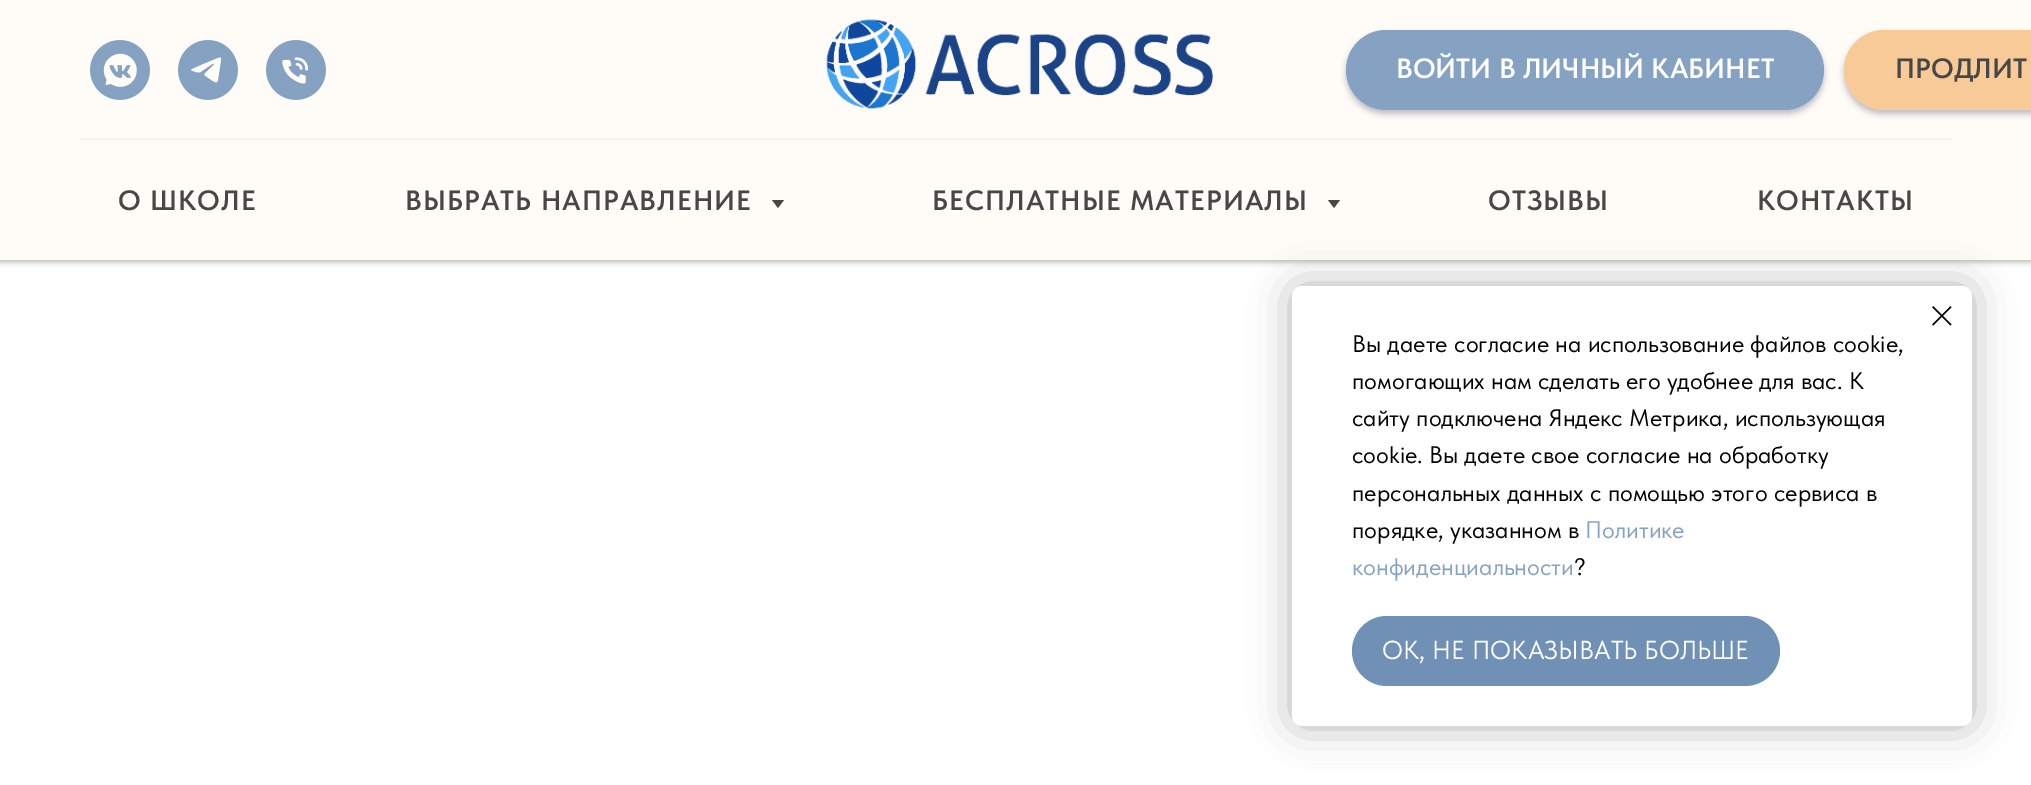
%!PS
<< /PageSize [2031 785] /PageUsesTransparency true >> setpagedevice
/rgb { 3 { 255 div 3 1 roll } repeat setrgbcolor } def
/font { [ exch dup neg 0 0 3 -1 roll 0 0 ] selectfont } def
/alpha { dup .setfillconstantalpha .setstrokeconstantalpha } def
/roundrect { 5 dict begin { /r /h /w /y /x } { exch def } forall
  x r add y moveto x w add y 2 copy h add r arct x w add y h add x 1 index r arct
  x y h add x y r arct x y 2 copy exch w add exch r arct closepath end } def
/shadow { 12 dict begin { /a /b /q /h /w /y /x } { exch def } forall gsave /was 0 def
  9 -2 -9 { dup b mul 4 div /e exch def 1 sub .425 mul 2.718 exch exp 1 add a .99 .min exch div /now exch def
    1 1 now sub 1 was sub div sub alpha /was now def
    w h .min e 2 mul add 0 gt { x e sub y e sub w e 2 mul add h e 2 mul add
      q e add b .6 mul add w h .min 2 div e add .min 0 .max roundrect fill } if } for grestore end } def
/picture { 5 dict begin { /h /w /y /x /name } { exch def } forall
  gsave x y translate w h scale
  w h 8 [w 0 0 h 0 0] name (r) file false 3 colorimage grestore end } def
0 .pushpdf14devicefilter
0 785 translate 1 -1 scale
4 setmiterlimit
255 255 255 rgb
0 0 2031 785 rectfill
0 0 0 rgb
0 2 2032 260 0 3 0.3 shadow
255 251 246 rgb
0 0 2031 260 rectfill
(img/1.rgb) 826 19 387 90 picture
(img/2.rgb) 90 40 60 60 picture
(img/3.rgb) 178 40 60 60 picture
(img/4.rgb) 266 40 60 60 picture
0 11 48 rgb
1346 34 478 80 40 3 0.25 shadow
134 162 194 rgb
1346 30 478 80 40 roundrect fill
0 11 48 rgb
1844 34 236 80 40 3 0.25 shadow
247 202 151 rgb
1884 30 moveto 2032 30 lineto 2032 110 lineto 1884 110 lineto 1862 110 1844 92 1844 70 curveto 1844 48 1862 30 1884 30 curveto closepath fill
243 242 241 rgb
80 138 1872 2 rectfill
71 71 71 rgb
772 200 moveto 784 200 lineto 778 208 lineto closepath fill
1328 200 moveto 1340 200 lineto 1334 208 lineto closepath fill
0 0 0 rgb
1292 286 680 440 10 20 0.3 shadow
255 255 255 rgb
1292 286 680 440 10 roundrect fill
(img/5.rgb) 1932 306 20 20 picture
113 144 182 rgb
1352 616 428 70 35 roundrect fill
gsave
1396 50 378 40 rectclip
/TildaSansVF-SemiBold 28 font
255 255 255 rgb
1396 78 moveto (ВОЙТИ В ЛИЧНЫЙ КАБИНЕТ) show
grestore
/TildaSansVF-SemiBold 28 font
71 71 71 rgb
1895 78 moveto (ПРОДЛИТ) show
118 210 moveto 1 0 (О ШКОЛЕ) ashow
405 210 moveto 1 0 (ВЫБРАТЬ НАПРАВЛЕНИЕ) ashow
932 210 moveto 1 0 (БЕСПЛАТНЫЕ МАТЕРИАЛЫ) ashow
1488 210 moveto 1 0 (ОТЗЫВЫ) ashow
1757 210 moveto 1 0 (КОНТАКТЫ) ashow
/TildaSansVF-Regular 24 font
0 0 0 rgb
[
  [(Вы даете согласие на использование файлов cookie,) 1352 352]
  [(помогающих нам сделать его удобнее для вас. К) 1352 389]
  [(сайту подключена Яндекс Метрика, использующая) 1352 426]
  [(cookie. Вы даете свое согласие на обработку) 1352 463]
  [(персональных данных с помощью этого сервиса в) 1352 501]
  [(порядке, указанном в) 1352 538]
] { aload pop moveto show } forall
134 162 194 rgb
1585 538 moveto (Политике) show
1352 575 moveto (конфиденциальности) show
0 0 0 rgb
1574 575 moveto (?) show
/TildaSansVF-Regular 26 font
255 255 255 rgb
1382 659 moveto (ОК, НЕ ПОКАЗЫВАТЬ БОЛЬШЕ) show
.poppdf14devicefilter showpage
